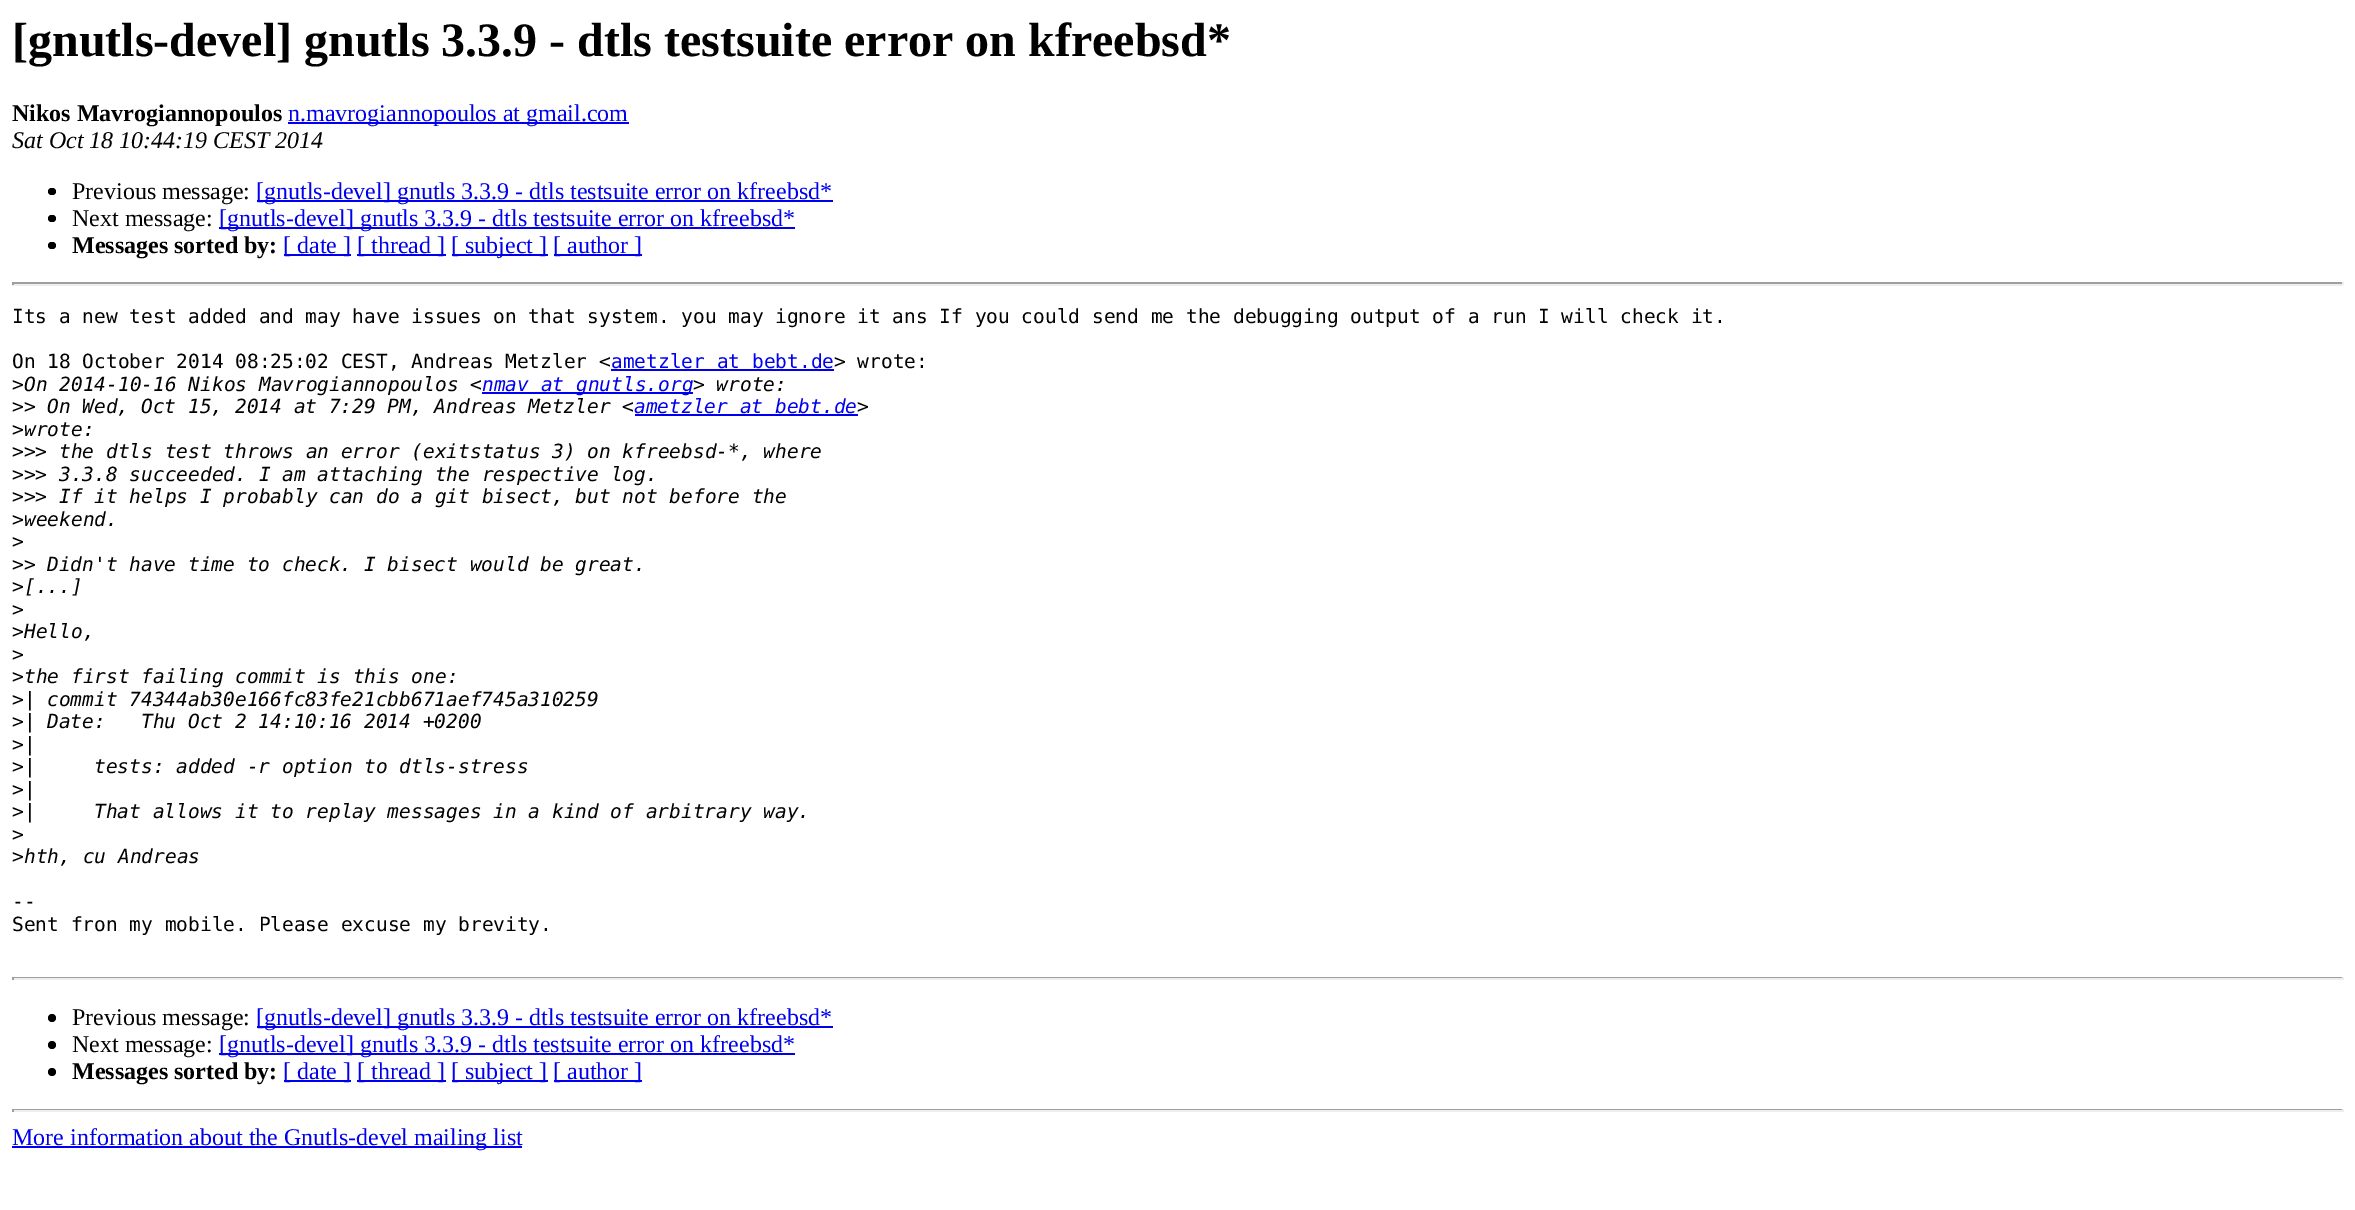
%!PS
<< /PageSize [2355 1210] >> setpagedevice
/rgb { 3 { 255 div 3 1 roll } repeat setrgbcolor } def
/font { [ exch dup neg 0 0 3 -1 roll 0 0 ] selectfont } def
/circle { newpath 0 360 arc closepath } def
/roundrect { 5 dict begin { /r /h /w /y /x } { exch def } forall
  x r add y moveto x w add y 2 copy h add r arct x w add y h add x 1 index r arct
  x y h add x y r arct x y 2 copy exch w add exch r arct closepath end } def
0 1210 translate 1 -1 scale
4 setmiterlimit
255 255 255 rgb
0 0 2355 1210 rectfill
0 0 238 rgb
288 122 341 2 rectfill
0 0 0 rgb
48 188 8 7 3.5 roundrect fill
0 0 238 rgb
257 200 576 2 rectfill
0 0 0 rgb
48 215 8 7 3.5 roundrect fill
0 0 238 rgb
219 227 576 2 rectfill
0 0 0 rgb
48 242 8 7 3.5 roundrect fill
[
  [284 254 67 2 0 0 238]
  [357 254 89 2 0 0 238]
  [452 254 96 2 0 0 238]
  [554 254 88 2 0 0 238]
  [12 282 2331 2 159 159 159]
  [2342 282 2 3 238 238 238]
  [12 284 2331 2 238 238 238]
  [12 282 2 3 159 159 159]
  [611 369 223 2 0 0 238]
  [482 392 211 2 0 0 238]
  [635 414 223 2 0 0 238]
  [12 977 2331 1 159 159 159]
  [2342 977 2 3 238 238 238]
  [12 978 2331 2 238 238 238]
  [12 977 2 3 159 159 159]
] { aload pop rgb rectfill } forall
0 0 0 rgb
52 1018 4 circle fill
0 0 238 rgb
257 1026 576 2 rectfill
0 0 0 rgb
52 1045 4 circle fill
0 0 238 rgb
219 1053 576 2 rectfill
0 0 0 rgb
52 1072 4 circle fill
[
  [284 1080 67 2 0 0 238]
  [357 1080 89 2 0 0 238]
  [452 1080 96 2 0 0 238]
  [554 1080 88 2 0 0 238]
  [12 1109 2331 1 159 159 159]
  [2342 1109 2 3 238 238 238]
  [12 1110 2331 2 238 238 238]
  [12 1109 2 3 159 159 159]
  [12 1146 510 2 0 0 238]
] { aload pop rgb rectfill } forall
/LiberationSerif-Bold 48 font
0 0 0 rgb
12 56 moveto ([gnutls-devel] gnutls 3.3.9 - dtls testsuite error on kfreebsd*) show
/LiberationSerif-Bold 24 font
12 121 moveto (Nikos Mavrogiannopoulos) show
/LiberationSerif-Regular 24 font
0 0 238 rgb
288 121 moveto (n.mavrogiannopoulos at gmail.com) show
/LiberationSerif-Italic 24 font
0 0 0 rgb
12 148 moveto (Sat Oct 18 10:44:19 CEST 2014) show
/LiberationSerif-Regular 24 font
72 199 moveto (Previous message:) show
0 0 238 rgb
256 199 moveto ([gnutls-devel] gnutls 3.3.9 - dtls testsuite error on kfreebsd*) show
0 0 0 rgb
72 226 moveto (Next message:) show
0 0 238 rgb
219 226 moveto ([gnutls-devel] gnutls 3.3.9 - dtls testsuite error on kfreebsd*) show
/LiberationSerif-Bold 24 font
0 0 0 rgb
72 253 moveto (Messages sorted by:) show
/LiberationSerif-Regular 24 font
0 0 238 rgb
[
  [([ date ]) 283 253]
  [([ thread ]) 357 253]
  [([ subject ]) 451 253]
  [([ author ]) 553 253]
] { aload pop moveto show } forall
/DejaVuSansMono-Regular 19.5 font
0 0 0 rgb
12 323 moveto (Its a new test added and may have issues on that system. you may ignore it ans If you could send me the debugging output of a run I will check it.) show
12 368 moveto (On 18 October 2014 08:25:02 CEST, Andreas Metzler <) show
0 0 238 rgb
611 368 moveto (ametzler at bebt.de) show
0 0 0 rgb
834 368 moveto (> wrote:) show
12 391 moveto (>) show
/DejaVuSansMono-Italic 19.5 font
24 391 moveto (On 2014-10-16 Nikos Mavrogiannopoulos <) show
0 0 238 rgb
482 391 moveto (nmav at gnutls.org) show
0 0 0 rgb
693 391 moveto (> wrote:) show
/DejaVuSansMono-Regular 19.5 font
12 413 moveto (>>) show
/DejaVuSansMono-Italic 19.5 font
47 413 moveto (On Wed, Oct 15, 2014 at 7:29 PM, Andreas Metzler <) show
0 0 238 rgb
634 413 moveto (ametzler at bebt.de) show
0 0 0 rgb
857 413 moveto (>) show
/DejaVuSansMono-Regular 19.5 font
12 436 moveto (>) show
/DejaVuSansMono-Italic 19.5 font
24 436 moveto (wrote:) show
/DejaVuSansMono-Regular 19.5 font
12 458 moveto (>>>) show
/DejaVuSansMono-Italic 19.5 font
59 458 moveto (the dtls test throws an error \(exitstatus 3\) on kfreebsd-*, where) show
/DejaVuSansMono-Regular 19.5 font
12 481 moveto (>>>) show
/DejaVuSansMono-Italic 19.5 font
59 481 moveto (3.3.8 succeeded. I am attaching the respective log.) show
/DejaVuSansMono-Regular 19.5 font
12 503 moveto (>>>) show
/DejaVuSansMono-Italic 19.5 font
59 503 moveto (If it helps I probably can do a git bisect, but not before the) show
/DejaVuSansMono-Regular 19.5 font
12 526 moveto (>) show
/DejaVuSansMono-Italic 19.5 font
24 526 moveto (weekend.) show
/DejaVuSansMono-Regular 19.5 font
12 548 moveto (>) show
12 571 moveto (>>) show
/DejaVuSansMono-Italic 19.5 font
47 571 moveto (Didn't have time to check. I bisect would be great.) show
/DejaVuSansMono-Regular 19.5 font
12 593 moveto (>) show
/DejaVuSansMono-Italic 19.5 font
24 593 moveto ([...]) show
/DejaVuSansMono-Regular 19.5 font
12 616 moveto (>) show
12 638 moveto (>) show
/DejaVuSansMono-Italic 19.5 font
24 638 moveto (Hello,) show
/DejaVuSansMono-Regular 19.5 font
12 661 moveto (>) show
12 683 moveto (>) show
/DejaVuSansMono-Italic 19.5 font
24 683 moveto (the first failing commit is this one:) show
/DejaVuSansMono-Regular 19.5 font
12 706 moveto (>|) show
/DejaVuSansMono-Italic 19.5 font
47 706 moveto (commit 74344ab30e166fc83fe21cbb671aef745a310259) show
/DejaVuSansMono-Regular 19.5 font
12 728 moveto (>|) show
/DejaVuSansMono-Italic 19.5 font
47 728 moveto (Date:   Thu Oct 2 14:10:16 2014 +0200) show
/DejaVuSansMono-Regular 19.5 font
12 751 moveto (>|) show
12 773 moveto (>|) show
/DejaVuSansMono-Italic 19.5 font
94 773 moveto (tests: added -r option to dtls-stress) show
/DejaVuSansMono-Regular 19.5 font
12 796 moveto (>|) show
12 818 moveto (>|) show
/DejaVuSansMono-Italic 19.5 font
94 818 moveto (That allows it to replay messages in a kind of arbitrary way.) show
/DejaVuSansMono-Regular 19.5 font
12 841 moveto (>) show
12 863 moveto (>) show
/DejaVuSansMono-Italic 19.5 font
24 863 moveto (hth, cu Andreas) show
/DejaVuSansMono-Regular 19.5 font
12 908 moveto (--) show
12 931 moveto (Sent fron my mobile. Please excuse my brevity.) show
/LiberationSerif-Regular 24 font
72 1025 moveto (Previous message:) show
0 0 238 rgb
256 1025 moveto ([gnutls-devel] gnutls 3.3.9 - dtls testsuite error on kfreebsd*) show
0 0 0 rgb
72 1052 moveto (Next message:) show
0 0 238 rgb
219 1052 moveto ([gnutls-devel] gnutls 3.3.9 - dtls testsuite error on kfreebsd*) show
/LiberationSerif-Bold 24 font
0 0 0 rgb
72 1079 moveto (Messages sorted by:) show
/LiberationSerif-Regular 24 font
0 0 238 rgb
[
  [([ date ]) 283 1079]
  [([ thread ]) 357 1079]
  [([ subject ]) 451 1079]
  [([ author ]) 553 1079]
  [(More information about the Gnutls-devel mailing list) 12 1145]
] { aload pop moveto show } forall
showpage
